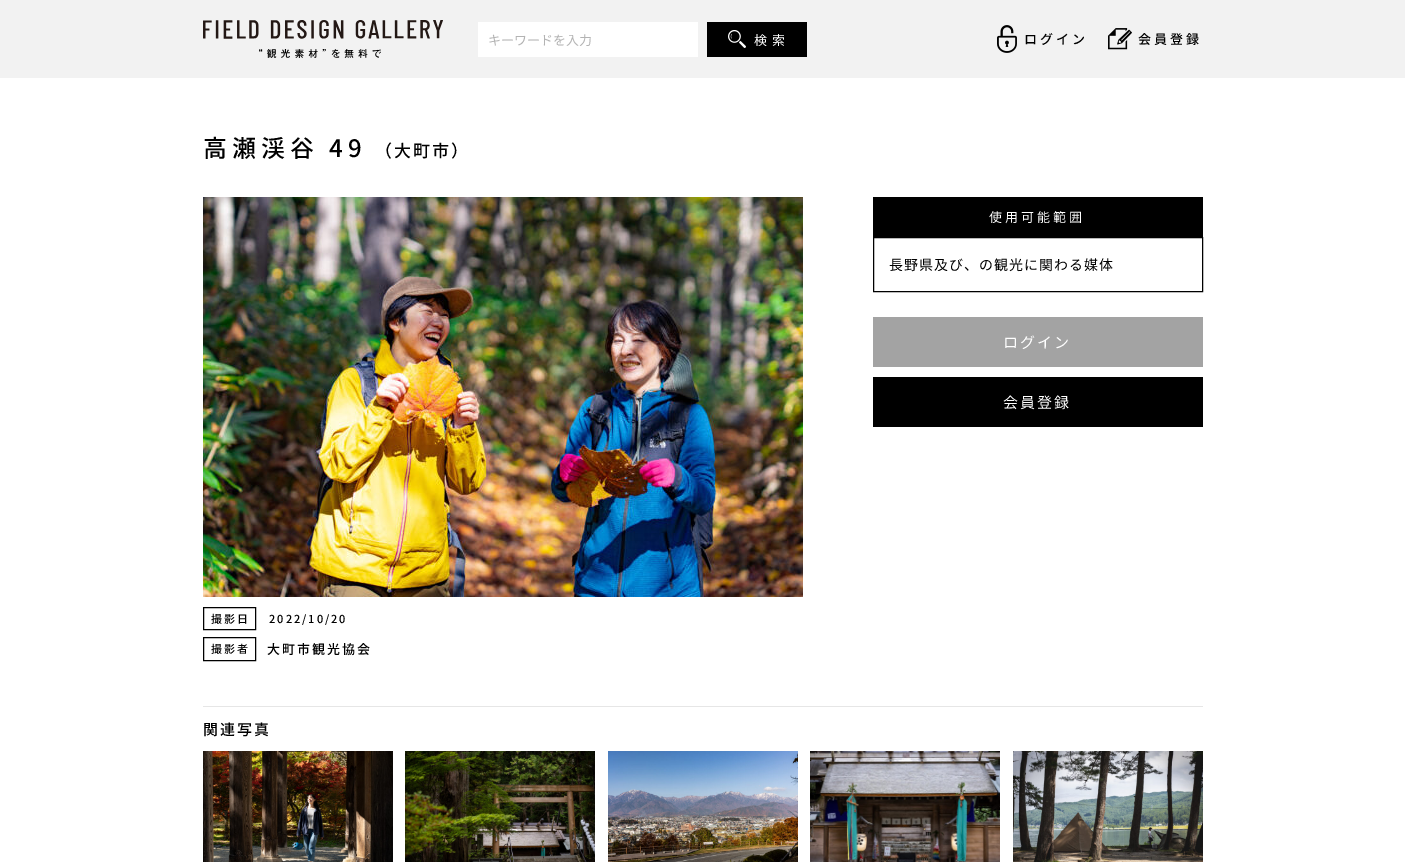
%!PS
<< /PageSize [1405 862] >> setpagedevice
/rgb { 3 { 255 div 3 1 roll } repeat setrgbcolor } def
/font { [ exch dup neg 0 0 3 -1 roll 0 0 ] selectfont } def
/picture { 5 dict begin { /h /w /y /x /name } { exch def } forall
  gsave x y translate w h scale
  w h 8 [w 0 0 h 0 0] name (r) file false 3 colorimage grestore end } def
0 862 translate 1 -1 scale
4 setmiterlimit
255 255 255 rgb
0 0 1405 862 rectfill
242 242 242 rgb
0 0 1405 78 rectfill
(img/1.rgb) 203 20 240 38 picture
255 255 255 rgb
478 22 220 35 rectfill
0 0 0 rgb
707 22 100 35 rectfill
(img/2.rgb) 728 30 18 18 picture
(img/3.rgb) 997 25 20 28 picture
(img/4.rgb) 1108 28 24 22 picture
230 230 230 rgb
203 706 1000 1 rectfill
0 0 0 rgb
873 197 330 40 rectfill
873.5 237.5 329 54 rectstroke
163 163 163 rgb
873 317 330 50 rectfill
0 0 0 rgb
873 377 330 50 rectfill
(img/5.rgb) 203 197 600 400 picture
203.5 607.5 52 22 rectstroke
203.5 637.5 52 23 rectstroke
(img/6.rgb) 203 751 190 111 picture
(img/7.rgb) 405 751 190 111 picture
(img/8.rgb) 608 751 190 111 picture
(img/9.rgb) 810 751 190 111 picture
(img/10.rgb) 1013 751 190 111 picture
/NotoSansJP-Regular 13 font
179 179 179 rgb
488 45 moveto (キーワードを入力) show
255 255 255 rgb
754 45 moveto 1 0 (検 索) ashow
/NotoSansJP-Medium 13 font
0 0 0 rgb
1024 44 moveto 3 0 (ログイン) ashow
1138 44 moveto 3 0 (会員登録) ashow
/NotoSansJP-Medium 24 font
203 157 moveto 5 0 (高瀬渓谷 49) ashow
/NotoSansJP-Medium 17 font
375 157 moveto 2 0 (（大町市）) ashow
/NotoSansJP-Regular 13 font
255 255 255 rgb
989 222 moveto 3 0 (使用可能範囲) ashow
/NotoSansJP-Regular 14 font
0 0 0 rgb
889 270 moveto 1 0 (長野県及び、の観光に関わる媒体) ashow
/NotoSansJP-Regular 15 font
255 255 255 rgb
1003 348 moveto 2 0 (ログイン) ashow
1003 408 moveto 2 0 (会員登録) ashow
/NotoSansJP-Medium 11 font
0 0 0 rgb
211 623 moveto 2 0 (撮影日) ashow
269 623 moveto 2 0 (2022/10/20) ashow
211 653 moveto 2 0 (撮影者) ashow
/NotoSansJP-Medium 13 font
267 654 moveto 2 0 (大町市観光協会) ashow
/NotoSansJP-Medium 15 font
203 735 moveto 2 0 (関連写真) ashow
showpage
